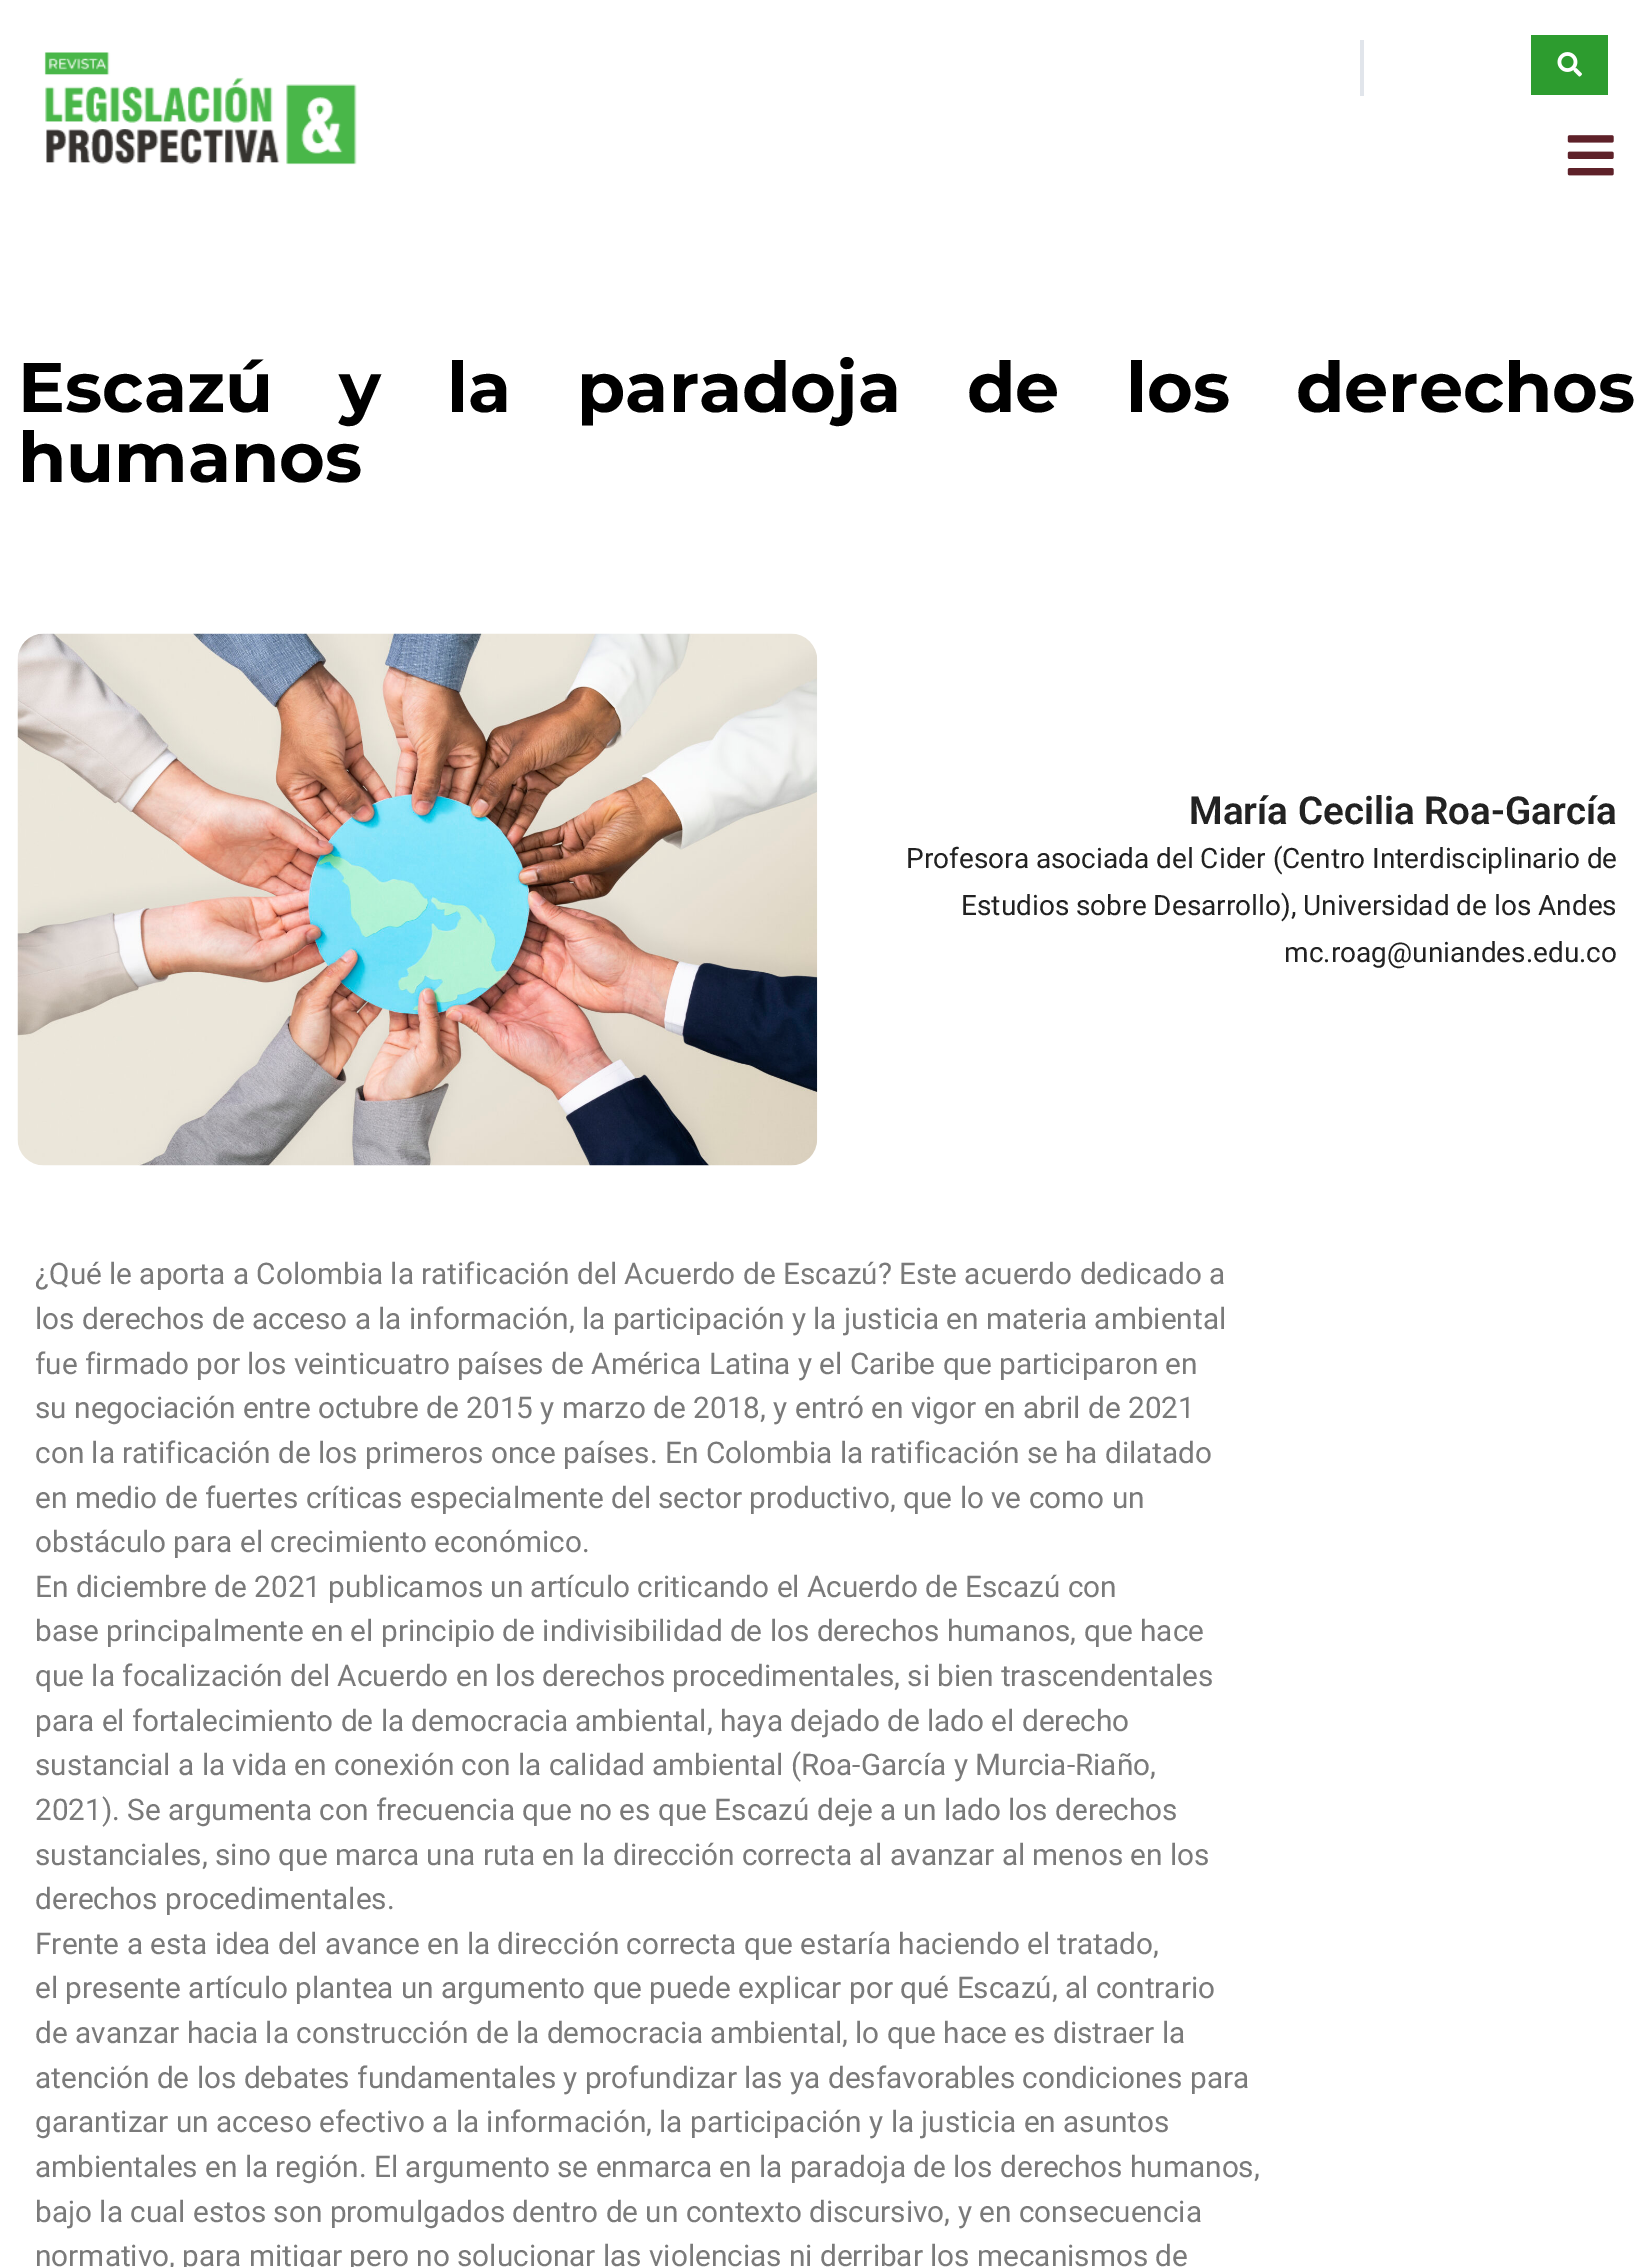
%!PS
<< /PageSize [1652 2267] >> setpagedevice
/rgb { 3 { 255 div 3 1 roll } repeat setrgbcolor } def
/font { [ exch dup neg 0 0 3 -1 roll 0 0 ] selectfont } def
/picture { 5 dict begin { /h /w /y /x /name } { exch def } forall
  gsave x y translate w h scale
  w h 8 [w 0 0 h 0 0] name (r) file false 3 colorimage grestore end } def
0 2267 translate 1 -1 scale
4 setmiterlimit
255 255 255 rgb
0 0 1652 2267 rectfill
(img/1.rgb) 44 52 313 113 picture
225 229 235 rgb
1360 40 4 56 rectfill
45 156 47 rgb
1531 35 77 60 rectfill
(img/2.rgb) 1557 52 25 25 picture
(img/3.rgb) 1567 135 47 41 picture
(img/4.rgb) 17 633 801 533 picture
/Montserrat-Bold 70 font
0 0 0 rgb
18 412 moveto 46.25 0 32 (Escazú y la paradoja de los derechos) widthshow
18 482 moveto (humanos) show
/Roboto-SemiBold 38.5 font
34 34 34 rgb
1189 824 moveto (María Cecilia Roa-García) show
/Roboto-Regular 28 font
[
  [(Profesora asociada del Cider \(Centro Interdisciplinario de) 906 868]
  [(Estudios sobre Desarrollo\), Universidad de los Andes) 961 915]
  [(mc.roag@uniandes.edu.co) 1284 962]
] { aload pop moveto show } forall
/Roboto-Regular 29.75 font
122 122 122 rgb
[
  [(¿Qué le aporta a Colombia la ratificación del Acuerdo de Escazú? Este acuerdo dedicado a) 35 1284]
  [(los derechos de acceso a la información, la participación y la justicia en materia ambiental) 35 1329]
  [(fue firmado por los veinticuatro países de América Latina y el Caribe que participaron en) 35 1374]
  [(su negociación entre octubre de 2015 y marzo de 2018, y entró en vigor en abril de 2021) 35 1418]
  [(con la ratificación de los primeros once países. En Colombia la ratificación se ha dilatado) 35 1463]
  [(en medio de fuertes críticas especialmente del sector productivo, que lo ve como un) 35 1508]
  [(obstáculo para el crecimiento económico.) 35 1552]
  [(En diciembre de 2021 publicamos un artículo criticando el Acuerdo de Escazú con) 35 1597]
  [(base principalmente en el principio de indivisibilidad de los derechos humanos, que hace) 35 1641]
  [(que la focalización del Acuerdo en los derechos procedimentales, si bien trascendentales) 35 1686]
  [(para el fortalecimiento de la democracia ambiental, haya dejado de lado el derecho) 35 1731]
  [(sustancial a la vida en conexión con la calidad ambiental \(Roa-García y Murcia-Riaño,) 35 1775]
  [(2021\). Se argumenta con frecuencia que no es que Escazú deje a un lado los derechos) 35 1820]
  [(sustanciales, sino que marca una ruta en la dirección correcta al avanzar al menos en los) 35 1865]
  [(derechos procedimentales.) 35 1909]
  [(Frente a esta idea del avance en la dirección correcta que estaría haciendo el tratado,) 35 1954]
  [(el presente artículo plantea un argumento que puede explicar por qué Escazú, al contrario) 35 1998]
  [(de avanzar hacia la construcción de la democracia ambiental, lo que hace es distraer la) 35 2043]
  [(atención de los debates fundamentales y profundizar las ya desfavorables condiciones para) 35 2088]
  [(garantizar un acceso efectivo a la información, la participación y la justicia en asuntos) 35 2132]
  [(ambientales en la región. El argumento se enmarca en la paradoja de los derechos humanos,) 35 2177]
  [(bajo la cual estos son promulgados dentro de un contexto discursivo, y en consecuencia) 35 2222]
  [(normativo, para mitigar pero no solucionar las violencias ni derribar los mecanismos de) 35 2266]
] { aload pop moveto show } forall
showpage
